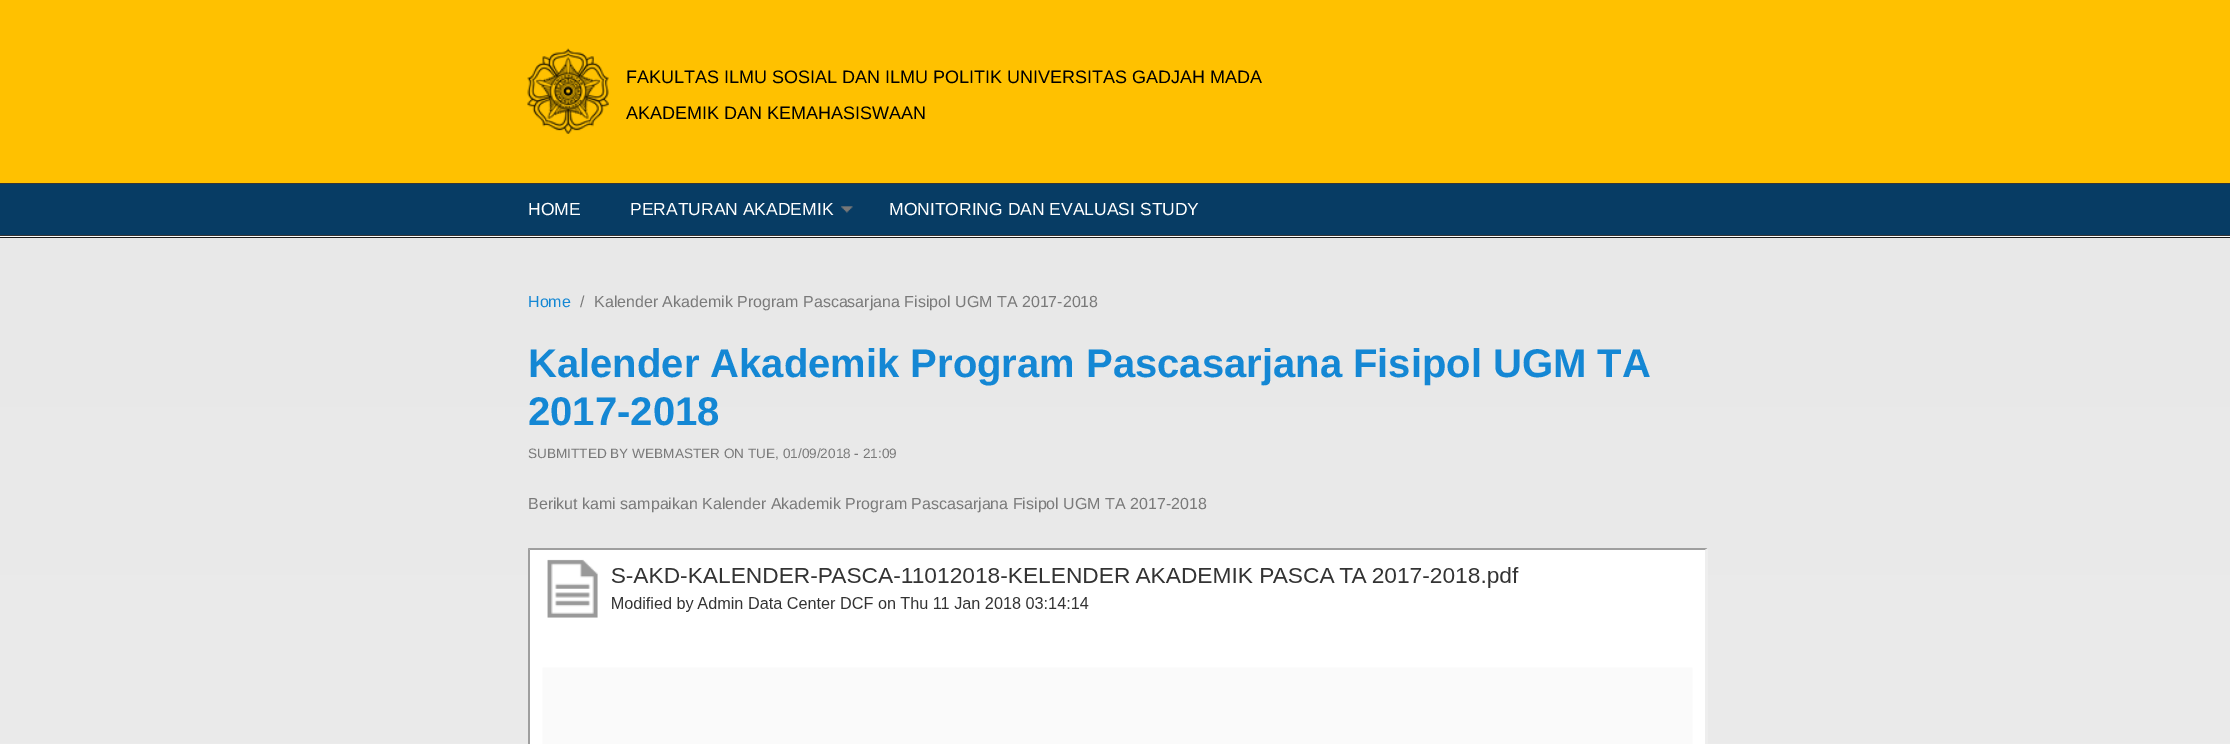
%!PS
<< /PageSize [2230 744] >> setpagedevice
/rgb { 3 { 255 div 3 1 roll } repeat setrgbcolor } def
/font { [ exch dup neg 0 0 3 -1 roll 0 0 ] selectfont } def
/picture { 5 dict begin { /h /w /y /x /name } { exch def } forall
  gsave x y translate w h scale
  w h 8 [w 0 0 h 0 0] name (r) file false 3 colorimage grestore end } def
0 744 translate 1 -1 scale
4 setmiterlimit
26 26 26 rgb
0 0 2230 744 rectfill
255 193 0 rgb
0 0 2230 183 rectfill
(img/1.rgb) 527 48 82 86 picture
[
  [0 184 2230 51 7 60 100]
  [0 183 2230 1 53 53 53]
  [0 235 2230 1 53 53 53]
] { aload pop rgb rectfill } forall
(img/2.rgb) 841 206 12 7 picture
252 252 252 rgb
0 236 2230 1 rectfill
gsave 0 238 moveto 2230 238 lineto 2230 744 lineto 0 744 lineto closepath clip newpath
<< /ShadingType 2 /ColorSpace /DeviceRGB /Coords [1115 237 1115 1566] /Extend [true true] /Function << /FunctionType 2 /Domain [0 1] /C0 [0.91 0.91 0.91] /C1 [0.937 0.937 0.937] /N 1 >> >> shfill grestore
159 159 159 rgb
528 548 moveto 1708 548 lineto 1705 550 lineto 530 550 lineto closepath fill
528 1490 moveto 528 548 lineto 530 550 lineto 530 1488 lineto closepath fill
(img/3.rgb) 530 550 1175 194 picture
238 238 238 rgb
1708 548 moveto 1708 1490 lineto 1705 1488 lineto 1705 550 lineto closepath fill
/LiberationSans-Regular 18 font
0 0 0 rgb
626 83 moveto (FAKULTAS ILMU SOSIAL DAN ILMU POLITIK UNIVERSITAS GADJAH MADA) show
626 119 moveto (AKADEMIK DAN KEMAHASISWAAN) show
/LiberationSans-Regular 17.5 font
255 255 255 rgb
[
  [(HOME) 528 215]
  [(PERATURAN AKADEMIK) 630 215]
  [(MONITORING DAN EVALUASI STUDY) 889 215]
] { aload pop moveto show } forall
/LiberationSans-Regular 16 font
20 135 212 rgb
528 307 moveto (Home) show
122 122 122 rgb
580 307 moveto (/) show
594 307 moveto (Kalender Akademik Program Pascasarjana Fisipol UGM TA 2017-2018) show
/LiberationSans-Bold 40 font
20 135 212 rgb
528 377 moveto (Kalender Akademik Program Pascasarjana Fisipol UGM TA) show
528 425 moveto (2017-2018) show
/LiberationSans-Regular 13.6 font
122 122 122 rgb
528 458 moveto (SUBMITTED BY WEBMASTER ON TUE, 01/09/2018 - 21:09) show
/LiberationSans-Regular 16 font
528 509 moveto (Berikut kami sampaikan Kalender Akademik Program Pascasarjana Fisipol UGM TA 2017-2018) show
showpage
